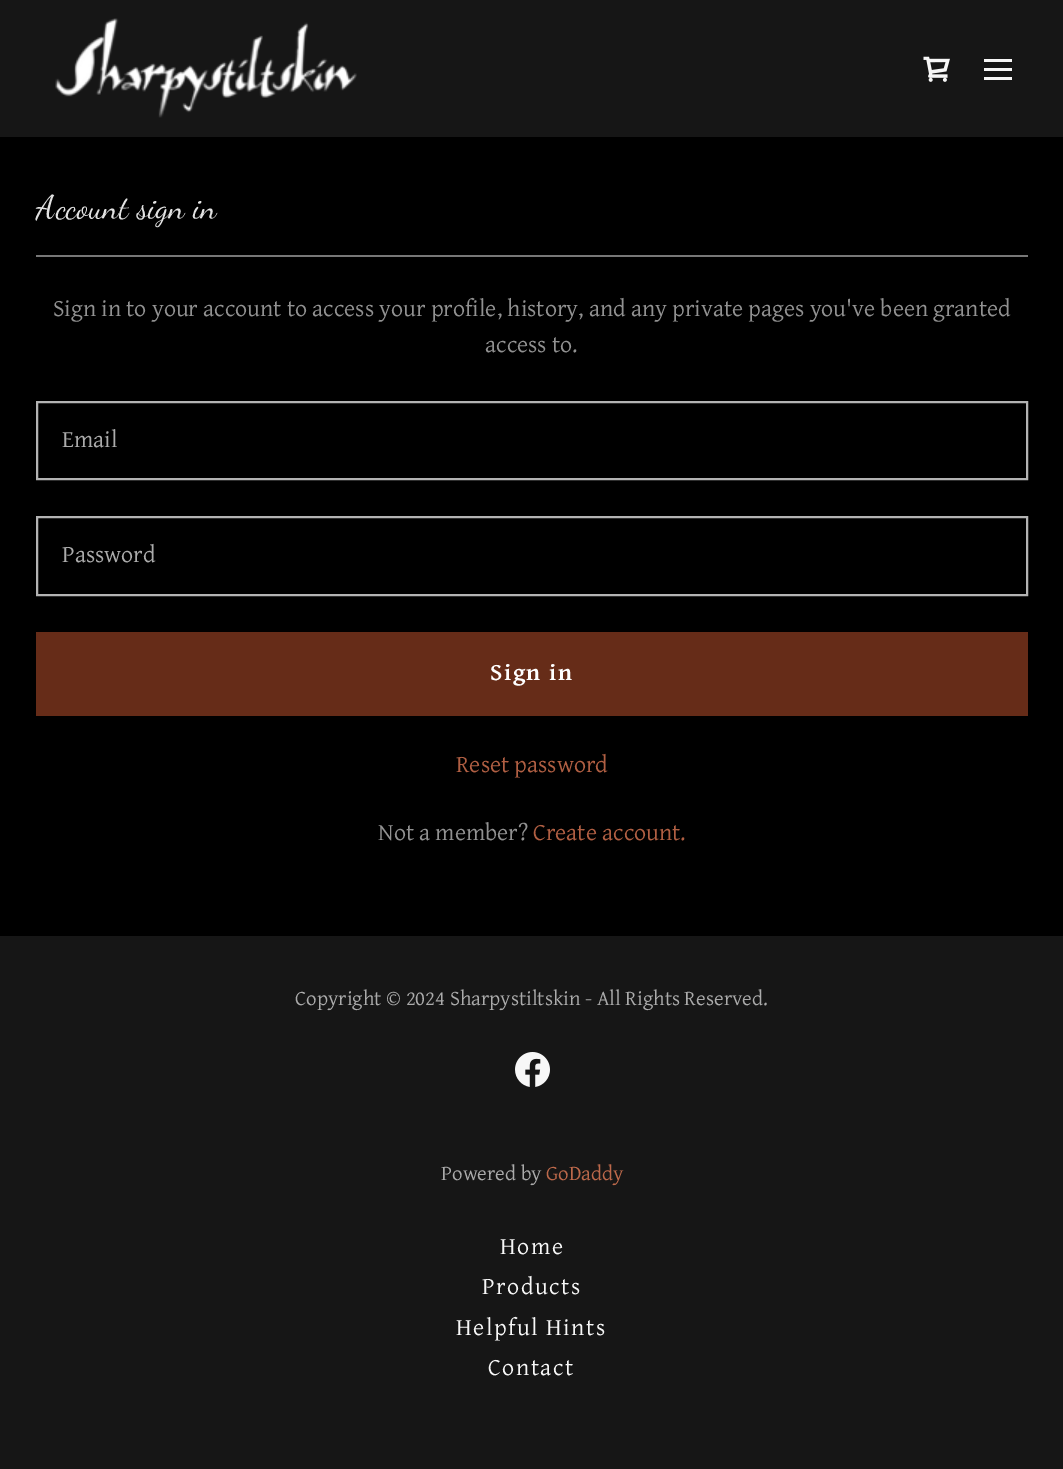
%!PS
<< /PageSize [1063 1469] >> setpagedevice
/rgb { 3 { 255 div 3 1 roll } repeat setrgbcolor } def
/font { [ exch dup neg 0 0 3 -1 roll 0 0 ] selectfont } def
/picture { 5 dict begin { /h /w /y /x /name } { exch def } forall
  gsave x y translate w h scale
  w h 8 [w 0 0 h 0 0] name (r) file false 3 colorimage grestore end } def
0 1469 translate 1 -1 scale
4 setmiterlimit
22 22 22 rgb
0 0 1063 1469 rectfill
(img/1.rgb) 55 18 302 100 picture
(img/2.rgb) 923 56 27 26 picture
[
  [984 59 28 3 247 247 247]
  [984 68 28 3 247 247 247]
  [984 77 28 3 247 247 247]
  [0 137 1063 799 0 0 0]
  [36 255 992 2 119 119 119]
] { aload pop rgb rectfill } forall
179 179 179 rgb
2 setlinewidth
37 402 990 77 rectstroke
37 517 990 78 rectstroke
102 44 24 rgb
36 632 992 84 rectfill
(img/3.rgb) 515 1052 35 35 picture
/DancingScript-Regular 33 font
226 226 226 rgb
36 218 moveto (Account sign in) show
/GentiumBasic-Regular 24 font
145 145 145 rgb
53 316 moveto (Sign in to your account to access your profile, history, and any private pages you've been granted) show
485 352 moveto (access to.) show
171 171 171 rgb
62 447 moveto (Email) show
62 562 moveto (Password) show
/GentiumBasic-Bold 24 font
255 255 255 rgb
490 680 moveto 1.5 0 (Sign in) ashow
/GentiumBasic-Regular 24 font
176 95 67 rgb
456 772 moveto (Reset password) show
145 145 145 rgb
378 840 moveto (Not a member?) show
176 95 67 rgb
533 840 moveto (Create account.) show
/GentiumBasic-Regular 21 font
171 171 171 rgb
295 1005 moveto (Copyright © 2024 Sharpystiltskin - All Rights Reserved.) show
441 1180 moveto (Powered by) show
189 105 75 rgb
546 1180 moveto (GoDaddy) show
/GentiumBasic-Regular 24 font
247 247 247 rgb
500 1254 moveto 1.5 0 (Home) ashow
482 1294 moveto 1.5 0 (Products) ashow
456 1335 moveto 1.5 0 (Helpful Hints) ashow
488 1375 moveto 1.5 0 (Contact) ashow
showpage
